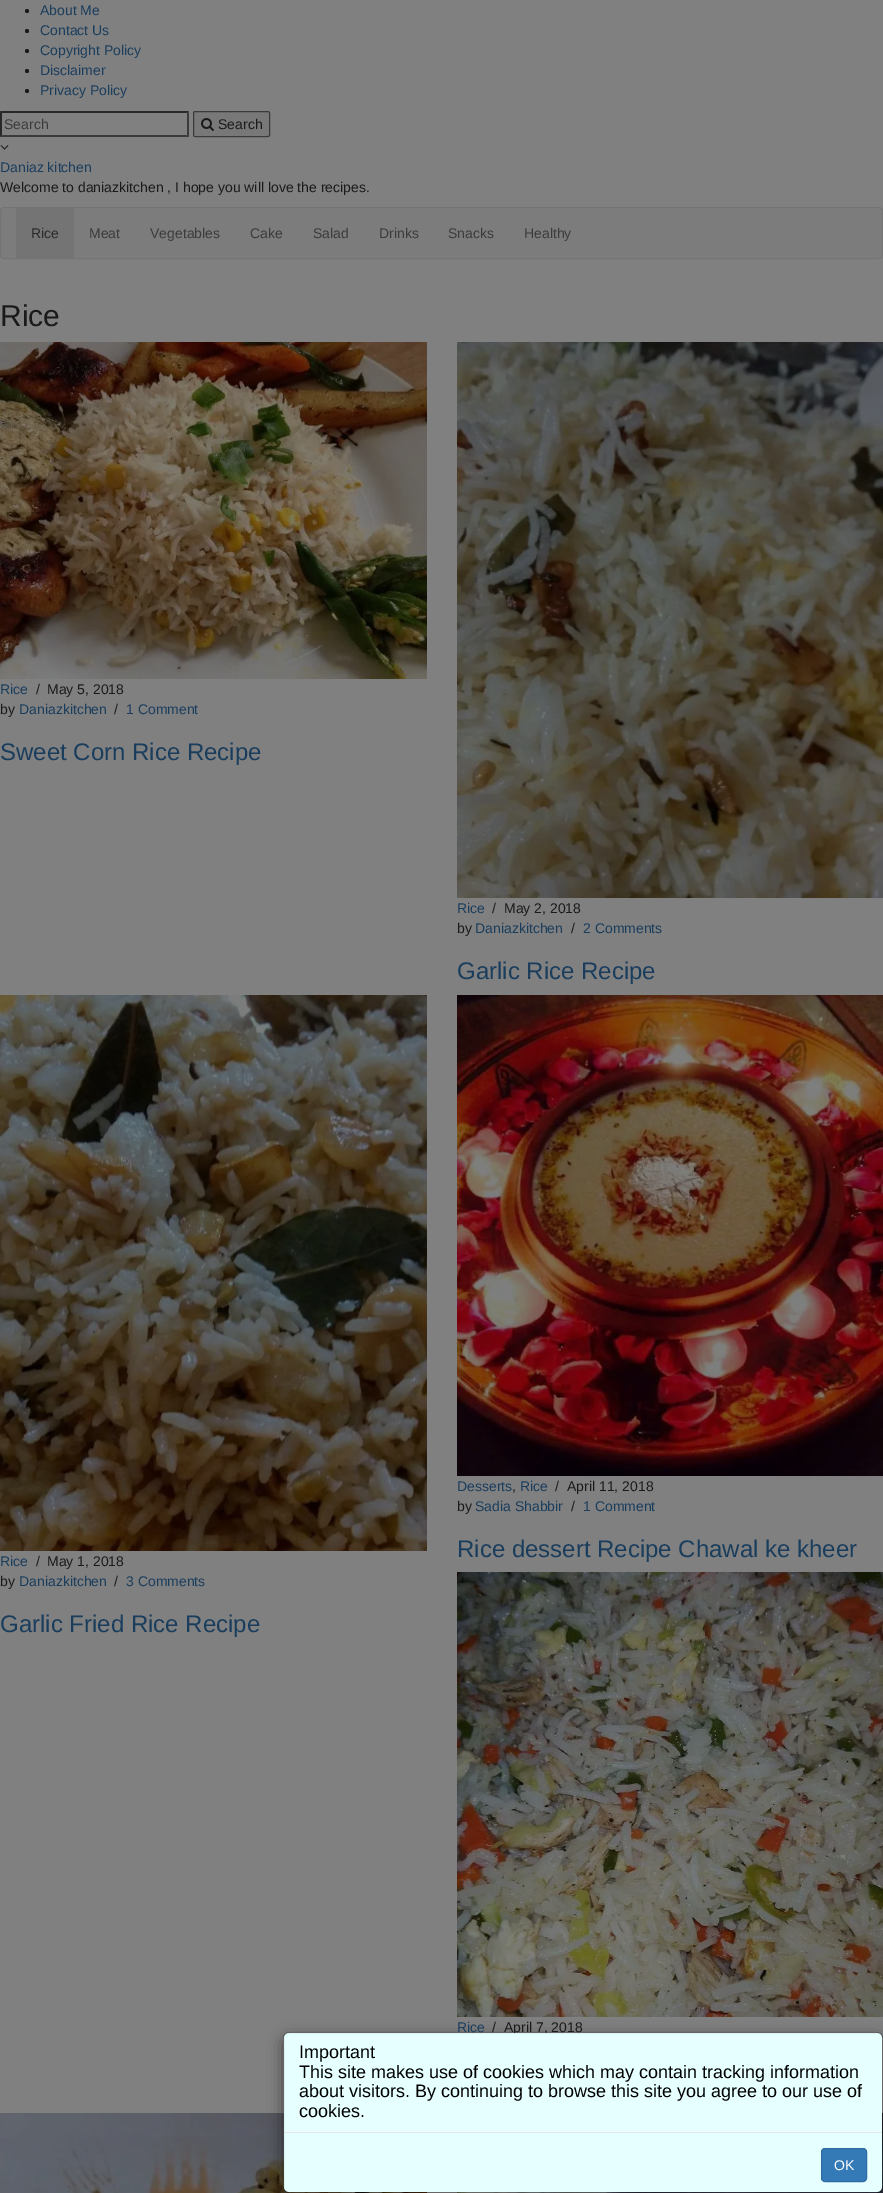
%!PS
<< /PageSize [883 2193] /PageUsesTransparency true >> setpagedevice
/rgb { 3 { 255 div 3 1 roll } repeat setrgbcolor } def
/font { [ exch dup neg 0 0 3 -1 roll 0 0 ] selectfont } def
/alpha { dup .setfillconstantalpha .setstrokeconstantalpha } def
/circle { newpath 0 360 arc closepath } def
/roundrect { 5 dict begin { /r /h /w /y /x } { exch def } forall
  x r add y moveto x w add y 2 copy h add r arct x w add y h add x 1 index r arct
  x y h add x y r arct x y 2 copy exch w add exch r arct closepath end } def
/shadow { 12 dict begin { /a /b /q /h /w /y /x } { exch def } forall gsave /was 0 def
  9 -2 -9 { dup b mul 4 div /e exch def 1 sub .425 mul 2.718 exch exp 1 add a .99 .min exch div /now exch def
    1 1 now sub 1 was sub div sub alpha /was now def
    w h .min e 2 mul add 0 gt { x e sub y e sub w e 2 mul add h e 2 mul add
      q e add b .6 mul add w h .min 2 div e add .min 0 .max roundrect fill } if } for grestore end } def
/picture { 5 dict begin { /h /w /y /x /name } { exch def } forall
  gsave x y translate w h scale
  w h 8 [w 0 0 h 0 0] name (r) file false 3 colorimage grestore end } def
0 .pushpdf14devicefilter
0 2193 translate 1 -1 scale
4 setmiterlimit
128 128 128 rgb
0 0 883 2193 rectfill
26 26 26 rgb
27 11 2 circle fill
27 31 2 circle fill
27 51 2 circle fill
27 71 2 circle fill
27 91 2 circle fill
40 40 40 rgb
0 111 moveto 189 111 lineto 187 113 lineto 2 113 lineto closepath fill
59 59 59 rgb
189 111 moveto 189 137 lineto 187 135 lineto 187 113 lineto closepath fill
189 137 moveto 0 137 lineto 2 135 lineto 187 135 lineto closepath fill
40 40 40 rgb
0 137 moveto 0 111 lineto 2 113 lineto 2 135 lineto closepath fill
120 120 120 rgb
193.5 111.5 76 25 1.5 roundrect gsave fill grestore
59 59 59 rgb
stroke
(img/1.rgb) 201 118 13 13 picture
(img/2.rgb) 0 145 9 5 picture
124 124 124 rgb
0.5 207.5 882 51 3.5 roundrect gsave fill grestore
116 116 116 rgb
stroke
16 208 58 50 rectfill
(img/3.rgb) 0 342 427 337 picture
(img/4.rgb) 457 342 426 556 picture
(img/5.rgb) 457 995 426 481 picture
(img/6.rgb) 0 995 427 556 picture
(img/7.rgb) 457 1572 426 445 picture
(img/8.rgb) 0 2113 427 80 picture
(img/9.rgb) 457 2113 426 80 picture
gsave
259 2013 moveto 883 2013 lineto 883 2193 lineto 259 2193 lineto closepath 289 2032 moveto 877 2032 lineto 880.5 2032 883 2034.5 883 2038 curveto 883 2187 lineto 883 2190.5 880.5 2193 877 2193 curveto 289 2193 lineto 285.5 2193 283 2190.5 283 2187 curveto 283 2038 lineto 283 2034.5 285.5 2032 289 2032 curveto closepath eoclip newpath
0 0 0 rgb
283 2037 600 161 6 7.5 0.5 shadow
grestore
/LiberationSans-Regular 14 font
26 61 92 rgb
[
  [(About Me) 40 15]
  [(Contact Us) 40 35]
  [(Copyright Policy) 40 55]
  [(Disclaimer) 40 75]
  [(Privacy Policy) 40 95]
] { aload pop moveto show } forall
59 59 59 rgb
4 129 moveto (Search) show
26 26 26 rgb
218 129 moveto (Search) show
26 61 92 rgb
0 172 moveto (Daniaz kitchen) show
26 26 26 rgb
0 192 moveto (Welcome to daniazkitchen , I hope you will love the recipes.) show
43 43 43 rgb
31 238 moveto (Rice) show
59 59 59 rgb
[
  [(Meat) 89 238]
  [(Vegetables) 150 238]
  [(Cake) 250 238]
  [(Salad) 313 238]
  [(Drinks) 379 238]
  [(Snacks) 448 238]
  [(Healthy) 524 238]
] { aload pop moveto show } forall
/LiberationSans-Regular 30 font
26 26 26 rgb
0 326 moveto (Rice) show
/LiberationSans-Regular 14 font
26 61 92 rgb
0 694 moveto (Rice) show
26 26 26 rgb
[
  [(/) 36 694]
  [(May 5, 2018) 47 694]
  [(by) 0 714]
] { aload pop moveto show } forall
26 61 92 rgb
19 714 moveto (Daniazkitchen) show
26 26 26 rgb
114 714 moveto (/) show
26 61 92 rgb
126 714 moveto (1 Comment) show
/LiberationSans-Regular 24 font
0 760 moveto (Sweet Corn Rice Recipe) show
/LiberationSans-Regular 14 font
457 913 moveto (Rice) show
26 26 26 rgb
[
  [(/) 492 913]
  [(May 2, 2018) 504 913]
  [(by) 457 933]
] { aload pop moveto show } forall
26 61 92 rgb
475 933 moveto (Daniazkitchen) show
26 26 26 rgb
571 933 moveto (/) show
26 61 92 rgb
583 933 moveto (2 Comments) show
/LiberationSans-Regular 24 font
457 979 moveto (Garlic Rice Recipe) show
/LiberationSans-Regular 14 font
457 1491 moveto (Desserts) show
26 26 26 rgb
512 1491 moveto (,) show
26 61 92 rgb
520 1491 moveto (Rice) show
26 26 26 rgb
[
  [(/) 555 1491]
  [(April 11, 2018) 567 1491]
  [(by) 457 1511]
] { aload pop moveto show } forall
26 61 92 rgb
475 1511 moveto (Sadia Shabbir) show
26 26 26 rgb
571 1511 moveto (/) show
26 61 92 rgb
583 1511 moveto (1 Comment) show
/LiberationSans-Regular 24 font
457 1557 moveto (Rice dessert Recipe Chawal ke kheer) show
/LiberationSans-Regular 14 font
0 1566 moveto (Rice) show
26 26 26 rgb
[
  [(/) 36 1566]
  [(May 1, 2018) 47 1566]
  [(by) 0 1586]
] { aload pop moveto show } forall
26 61 92 rgb
19 1586 moveto (Daniazkitchen) show
26 26 26 rgb
114 1586 moveto (/) show
26 61 92 rgb
126 1586 moveto (3 Comments) show
/LiberationSans-Regular 24 font
0 1632 moveto (Garlic Fried Rice Recipe) show
/LiberationSans-Regular 14 font
457 2032 moveto (Rice) show
26 26 26 rgb
492 2032 moveto (/) show
504 2032 moveto (April 7, 2018) show
230 255 255 rgb
284 2033 598 159 5 roundrect fill
0.2 alpha
0 0 0 rgb
283.5 2032.5 599 160 5.5 roundrect stroke
/LiberationSans-Regular 18 font
1 alpha
[
  [(Important) 299 2058]
  [(This site makes use of cookies which may contain tracking information) 299 2078]
  [(about visitors. By continuing to browse this site you agree to our use of) 299 2097]
  [(cookies.) 299 2117]
] { aload pop moveto show } forall
229 229 229 rgb
284 2132 598 1 rectfill
51 122 183 rgb
821.5 2148.5 45 33 3.5 roundrect gsave fill grestore
46 109 164 rgb
stroke
/LiberationSans-Regular 14 font
255 255 255 rgb
834 2170 moveto (OK) show
.poppdf14devicefilter showpage
